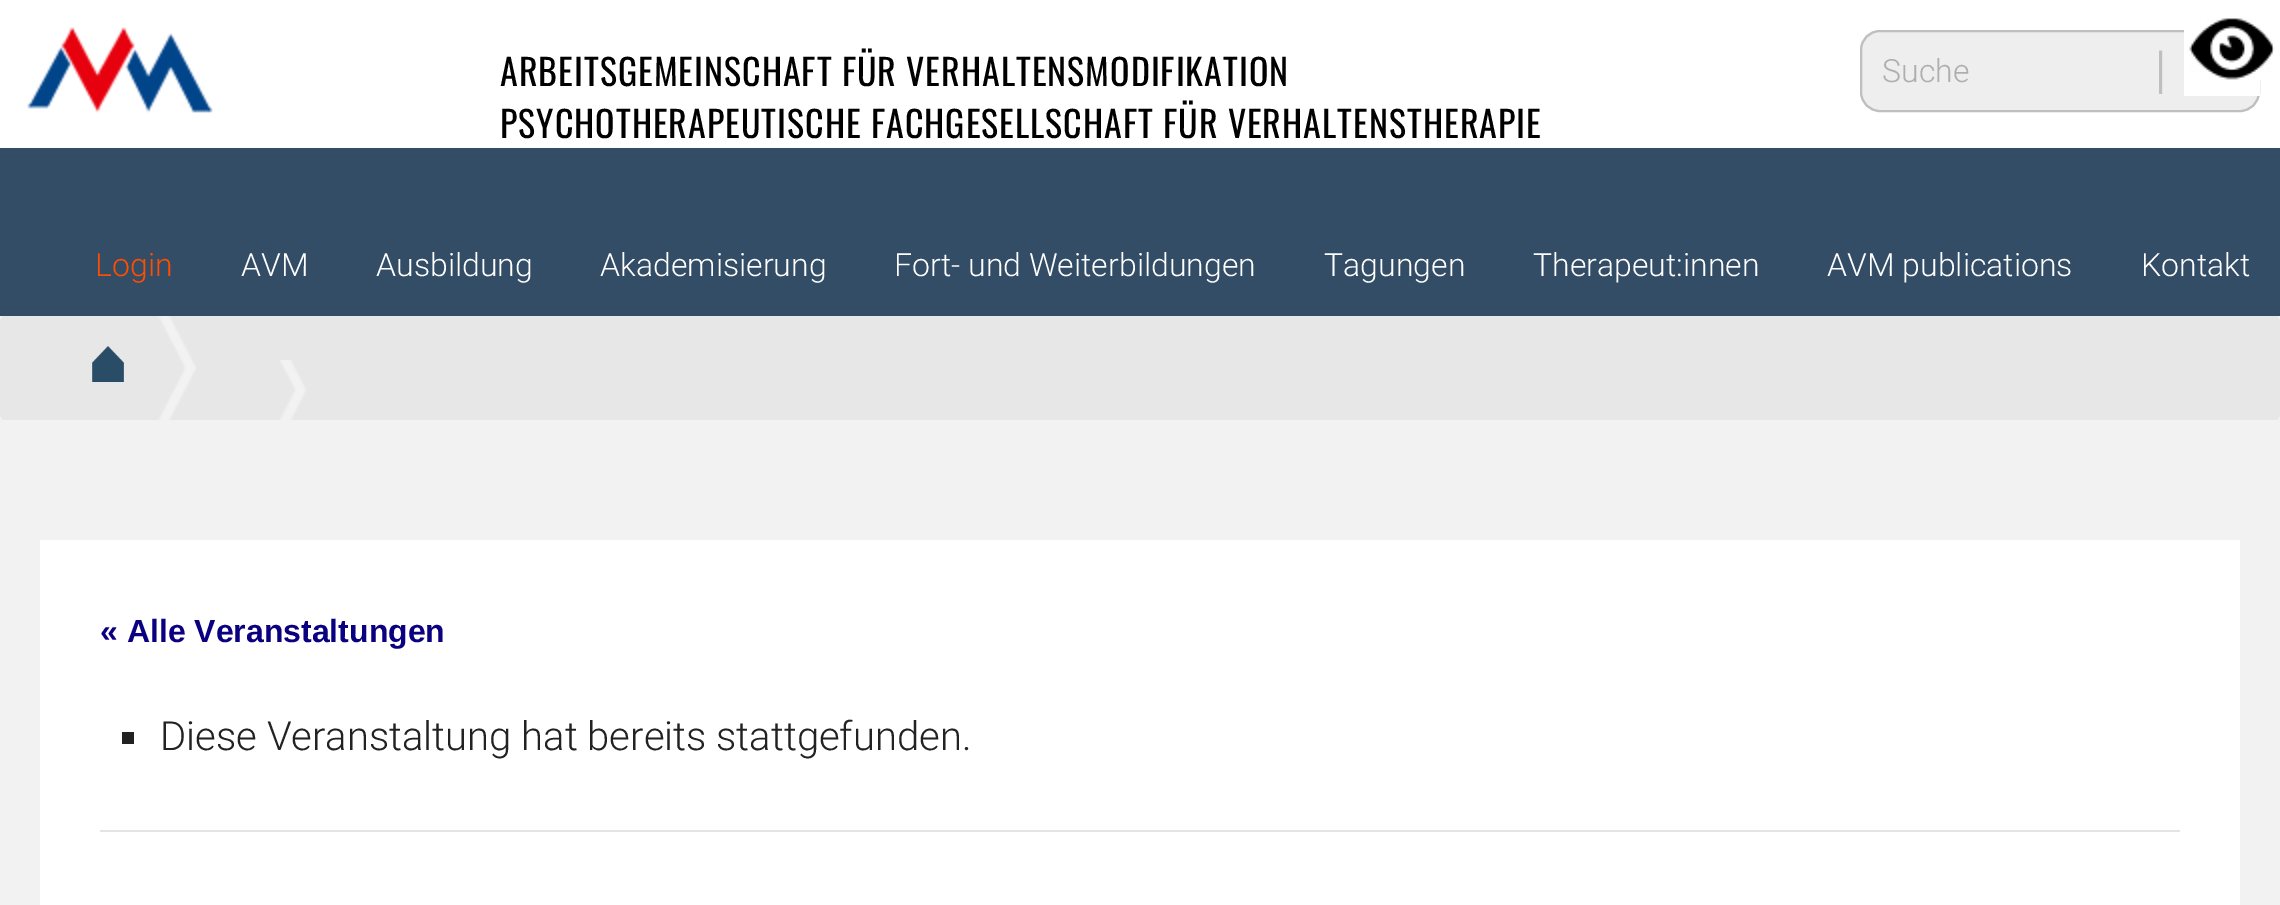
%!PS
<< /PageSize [2280 905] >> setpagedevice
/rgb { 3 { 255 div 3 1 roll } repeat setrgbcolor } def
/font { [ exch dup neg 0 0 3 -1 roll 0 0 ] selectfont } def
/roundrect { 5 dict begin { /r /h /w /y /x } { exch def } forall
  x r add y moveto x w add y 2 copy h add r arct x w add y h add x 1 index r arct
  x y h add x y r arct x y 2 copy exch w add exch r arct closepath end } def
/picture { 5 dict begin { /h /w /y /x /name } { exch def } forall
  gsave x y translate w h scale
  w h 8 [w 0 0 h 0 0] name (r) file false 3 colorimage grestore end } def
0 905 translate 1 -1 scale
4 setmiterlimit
242 242 242 rgb
0 0 2280 905 rectfill
255 255 255 rgb
0 0 2280 148 rectfill
238 238 238 rgb
1860 30 400 82 20 roundrect fill
(img/3.rgb) 2159 50 4 44 picture
191 191 191 rgb
2 setlinewidth
1861 31 398 80 19 roundrect stroke
255 255 255 rgb
2184 30 76 66 rectfill
(img/1.rgb) 2189 18 86 62 picture
(img/2.rgb) 27 27 186 86 picture
50 77 101 rgb
0 148 2280 168 rectfill
231 231 231 rgb
0 316 2280 104 6 roundrect fill
(img/4.rgb) 158 316 38 104 picture
(img/5.rgb) 92 346 32 36 picture
(img/6.rgb) 280 360 26 60 picture
[
  [40 540 2200 365 255 255 255]
  [100 830 2080 2 228 228 228]
  [122 732 12 12 34 34 34]
] { aload pop rgb rectfill } forall
/Oswald-Regular 36 font
0 0 0 rgb
500 86 moveto 1 0 (ARBEITSGEMEINSCHAFT FÜR VERHALTENSMODIFIKATION) ashow
500 138 moveto 1 0 (PSYCHOTHERAPEUTISCHE FACHGESELLSCHAFT FÜR VERHALTENSTHERAPIE) ashow
/Roboto-Light 32 font
174 174 174 rgb
1882 82 moveto (Suche) show
255 78 0 rgb
95 276 moveto (Login) show
255 255 255 rgb
[
  [(AVM) 241 276]
  [(Ausbildung) 376 276]
  [(Akademisierung) 600 276]
  [(Fort- und Weiterbildungen) 894 276]
  [(Tagungen) 1324 276]
  [(Therapeut:innen) 1533 276]
  [(AVM publications) 1827 276]
  [(Kontakt) 2141 276]
] { aload pop moveto show } forall
/LiberationSans-Bold 32 font
11 0 128 rgb
100 642 moveto (« Alle Veranstaltungen) show
/Roboto-Light 40 font
34 34 34 rgb
160 750 moveto (Diese Veranstaltung hat bereits stattgefunden.) show
showpage
